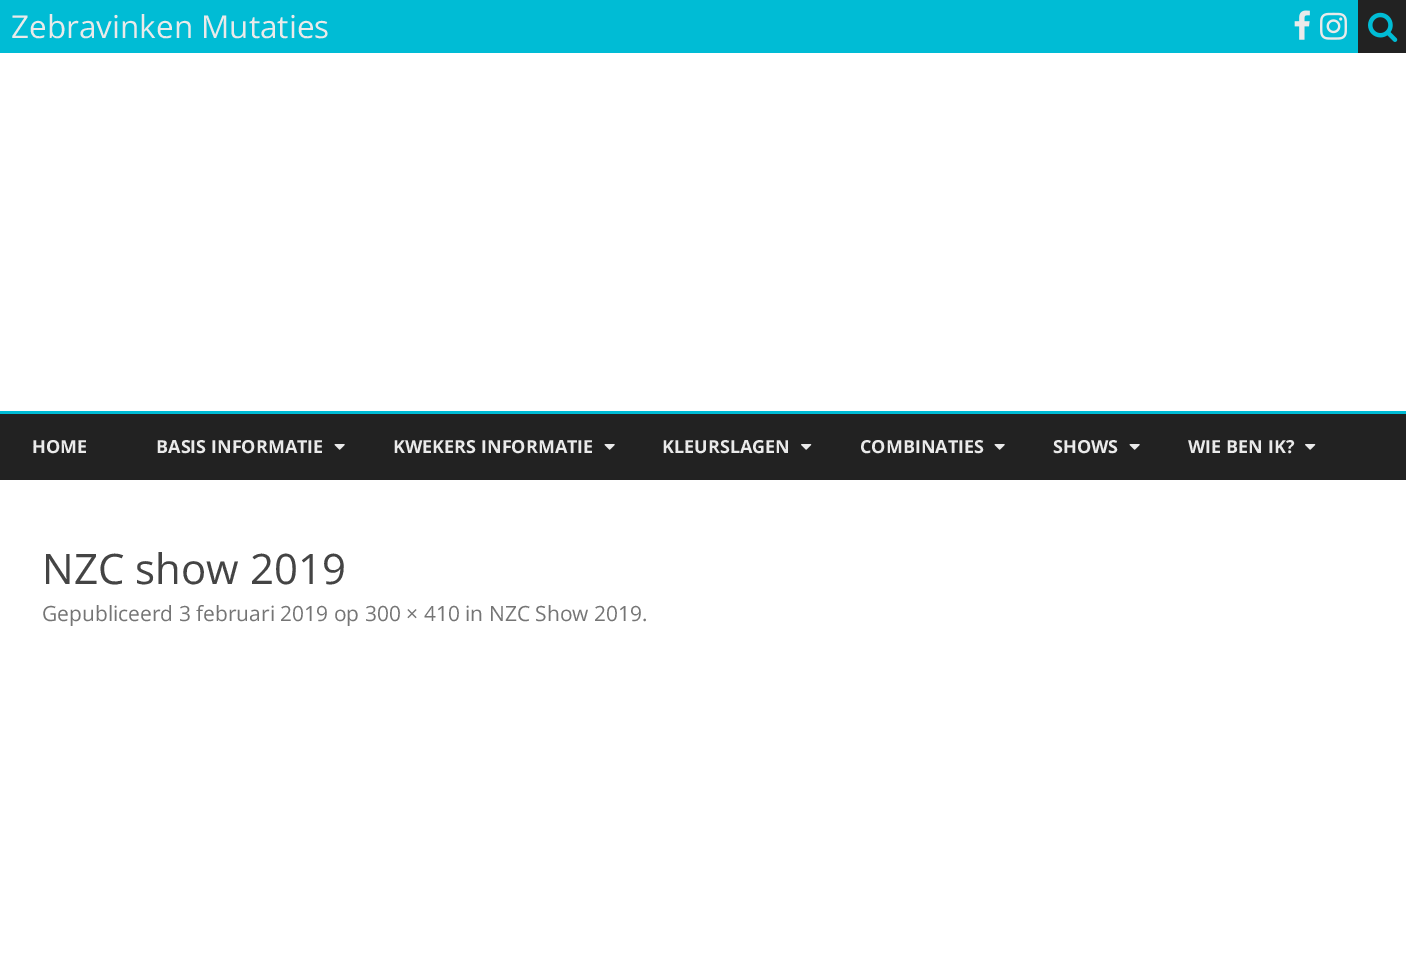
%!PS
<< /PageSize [1406 956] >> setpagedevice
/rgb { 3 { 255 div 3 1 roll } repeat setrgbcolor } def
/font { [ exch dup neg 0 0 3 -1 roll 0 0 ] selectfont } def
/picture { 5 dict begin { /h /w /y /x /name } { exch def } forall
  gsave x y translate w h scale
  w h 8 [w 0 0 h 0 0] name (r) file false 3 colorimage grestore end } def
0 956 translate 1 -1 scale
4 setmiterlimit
255 255 255 rgb
0 0 1406 956 rectfill
0 188 213 rgb
0 0 1358 53 rectfill
(img/1.rgb) 1294 10 16 30 picture
(img/2.rgb) 1320 12 27 28 picture
34 34 34 rgb
1358 0 48 53 rectfill
(img/3.rgb) 1368 12 30 30 picture
0 188 213 rgb
0 411 1406 3 rectfill
34 34 34 rgb
0 414 1406 66 rectfill
(img/4.rgb) 334 444 11 6 picture
(img/4.rgb) 604 444 11 6 picture
(img/5.rgb) 801 444 11 6 picture
(img/4.rgb) 994 444 11 6 picture
(img/4.rgb) 1129 444 11 6 picture
(img/5.rgb) 1305 444 11 6 picture
/OpenSans-Regular 31.5 font
234 234 234 rgb
11 38 moveto (Zebravinken Mutaties) show
/OpenSans-Bold 18 font
[
  [(HOME) 32 453]
  [(BASIS INFORMATIE) 156 453]
  [(KWEKERS INFORMATIE) 393 453]
  [(KLEURSLAGEN) 662 453]
  [(COMBINATIES) 860 453]
  [(SHOWS) 1053 453]
  [(WIE BEN IK?) 1188 453]
] { aload pop moveto show } forall
/OpenSans-Regular 42 font
68 68 68 rgb
42 584 moveto (NZC show 2019) show
/OpenSans-Regular 21 font
117 117 117 rgb
42 621 moveto (Gepubliceerd 3 februari 2019 op 300 × 410 in NZC Show 2019.) show
showpage
